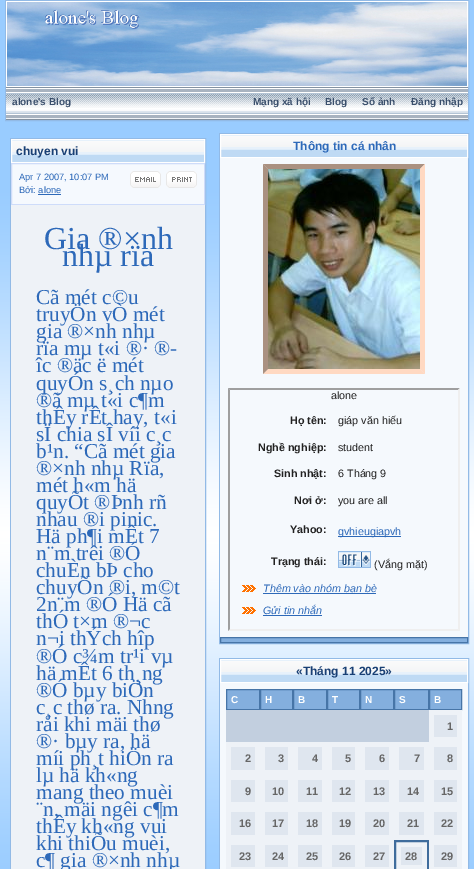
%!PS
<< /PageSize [474 869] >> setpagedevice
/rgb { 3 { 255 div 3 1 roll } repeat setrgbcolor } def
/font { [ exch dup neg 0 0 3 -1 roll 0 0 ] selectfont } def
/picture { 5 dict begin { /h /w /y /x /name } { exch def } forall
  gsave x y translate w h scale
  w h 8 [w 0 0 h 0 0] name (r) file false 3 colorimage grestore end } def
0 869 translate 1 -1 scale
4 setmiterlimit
255 255 255 rgb
0 0 474 869 rectfill
(img/1.rgb) 0 0 474 869 picture
146 186 230 rgb
5.5 0.5 463 120 rectstroke
255 255 255 rgb
6.5 1.5 461 85 rectstroke
(img/2.rgb) 7 2 460 84 picture
(img/3.rgb) 6 87 462 33 picture
146 186 230 rgb
10.5 138.5 195 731 rectstroke
(img/4.rgb) 12 140 192 22 picture
255 255 255 rgb
11.5 139.5 193 23 rectstroke
245 249 254 rgb
11.5 163.5 moveto 204.5 163.5 lineto 204.5 204.5 lineto 11.5 204.5 lineto closepath gsave fill grestore
206 220 250 rgb
stroke
45 105 185 rgb
38 194 23 1 rectfill
(img/5.rgb) 130 171 31 17 picture
(img/6.rgb) 166 171 31 17 picture
238 242 247 rgb
11 205 194 664 rectfill
146 186 230 rgb
219.5 133.5 249 510 rectstroke
(img/7.rgb) 221 135 246 22 picture
255 255 255 rgb
220.5 134.5 247 23 rectstroke
245 249 253 rgb
220 158 248 479 rectfill
170 145 129 rgb
263 164 moveto 425 164 lineto 420 169 lineto 268 169 lineto closepath fill
255 217 194 rgb
425 164 moveto 425 374 lineto 420 369 lineto 420 169 lineto closepath fill
425 374 moveto 263 374 lineto 268 369 lineto 420 369 lineto closepath fill
170 145 129 rgb
263 374 moveto 263 164 lineto 268 169 lineto 268 369 lineto closepath fill
(img/8.rgb) 268 169 152 200 picture
159 159 159 rgb
228 388 moveto 460 388 lineto 458 390 lineto 230 390 lineto closepath fill
239 239 239 rgb
460 388 moveto 460 631 lineto 458 629 lineto 458 390 lineto closepath fill
460 631 moveto 228 631 lineto 230 629 lineto 458 629 lineto closepath fill
159 159 159 rgb
228 631 moveto 228 388 lineto 230 390 lineto 230 629 lineto closepath fill
45 105 185 rgb
338 536 63 1 rectfill
(img/9.rgb) 338 551 33 17 picture
(img/10.rgb) 242 585 14 7 picture
263 593 113 1 rectfill
(img/10.rgb) 242 607 14 7 picture
263 615 59 1 rectfill
132 175 222 rgb
220.5 637.5 moveto 467.5 637.5 lineto 467.5 642.5 lineto 220.5 642.5 lineto closepath gsave fill grestore
71 117 167 rgb
stroke
146 186 230 rgb
219.5 658.5 249 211 rectstroke
(img/7.rgb) 221 660 246 22 picture
255 255 255 rgb
220.5 659.5 247 23 rectstroke
245 249 253 rgb
220 683 248 186 rectfill
132 175 222 rgb
226.5 689.5 moveto 259.5 689.5 lineto 259.5 709.5 lineto 226.5 709.5 lineto closepath gsave fill grestore
71 117 167 rgb
stroke
132 175 222 rgb
260.5 689.5 moveto 292.5 689.5 lineto 292.5 709.5 lineto 260.5 709.5 lineto closepath gsave fill grestore
71 117 167 rgb
stroke
132 175 222 rgb
293.5 689.5 moveto 326.5 689.5 lineto 326.5 709.5 lineto 293.5 709.5 lineto closepath gsave fill grestore
71 117 167 rgb
stroke
132 175 222 rgb
327.5 689.5 moveto 359.5 689.5 lineto 359.5 709.5 lineto 327.5 709.5 lineto closepath gsave fill grestore
71 117 167 rgb
stroke
132 175 222 rgb
360.5 689.5 moveto 393.5 689.5 lineto 393.5 709.5 lineto 360.5 709.5 lineto closepath gsave fill grestore
71 117 167 rgb
stroke
132 175 222 rgb
394.5 689.5 moveto 428.5 689.5 lineto 428.5 709.5 lineto 394.5 709.5 lineto closepath gsave fill grestore
71 117 167 rgb
stroke
132 175 222 rgb
429.5 689.5 moveto 461.5 689.5 lineto 461.5 709.5 lineto 429.5 709.5 lineto closepath gsave fill grestore
71 117 167 rgb
stroke
[
  [226 710 203 32 194 207 223]
  [429 710 33 32 238 242 247]
  [434 715 23 22 223 230 239]
  [226 742 236 33 238 242 247]
  [231 747 24 23 223 230 239]
  [265 747 23 23 223 230 239]
  [298 747 24 23 223 230 239]
  [332 747 23 23 223 230 239]
  [365 747 24 23 223 230 239]
  [399 747 25 23 223 230 239]
  [434 747 23 23 223 230 239]
  [226 775 236 32 238 242 247]
  [231 780 24 22 223 230 239]
  [265 780 23 22 223 230 239]
  [298 780 24 22 223 230 239]
  [332 780 23 22 223 230 239]
  [365 780 24 22 223 230 239]
  [399 780 25 22 223 230 239]
  [434 780 23 22 223 230 239]
  [226 807 236 33 238 242 247]
  [231 812 24 23 223 230 239]
  [265 812 23 23 223 230 239]
  [298 812 24 23 223 230 239]
  [332 812 23 23 223 230 239]
  [365 812 24 23 223 230 239]
  [399 812 25 23 223 230 239]
  [434 812 23 23 223 230 239]
  [226 840 168 29 238 242 247]
  [231 845 24 22 223 230 239]
  [265 845 23 22 223 230 239]
  [298 845 24 22 223 230 239]
  [332 845 23 22 223 230 239]
  [365 845 24 22 223 230 239]
] { aload pop rgb rectfill } forall
238 242 247 rgb
395 841 moveto 428 841 lineto 428 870 lineto 395 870 lineto closepath gsave fill grestore
63 108 156 rgb
2 setlinewidth
stroke
[
  [401 847 21 18 223 230 239]
  [429 840 33 29 238 242 247]
  [434 845 23 22 223 230 239]
] { aload pop rgb rectfill } forall
/LiberationSans-Bold 10 font
58 79 108 rgb
[
  [(alone's Blog) 12 105]
  [(Mạng xã hội) 253 105]
  [(Blog) 325 105]
  [(Sổ ảnh) 362 105]
  [(Đăng nhập) 411 105]
] { aload pop moveto show } forall
/LiberationSans-Bold 12 font
24 63 116 rgb
16 155 moveto (chuyen vui) show
/LiberationSans-Regular 9.25 font
45 105 185 rgb
19 180 moveto (Apr 7 2007, 10:07 PM) show
19 193 moveto (Bởi: alone) show
/LiberationSerif-Regular 32 font
44 249 moveto (Gia ®×nh) show
62 266 moveto (nhµ rïa) show
/LiberationSerif-Regular 21.25 font
[
  [(Cã mét c©u) 36 304]
  [(truyÖn vÒ mét) 36 321]
  [(gia ®×nh nhµ) 36 338]
  [(rïa mµ t«i ®· ®-) 36 355]
  [(îc ®äc ë mét) 36 372]
  [(quyÓn s¸ch nµo) 36 390]
  [(®ã mµ t«i c¶m) 36 407]
  [(thÊy rÊt hay, t«i) 36 424]
  [(sÏ chia sÎ víi c¸c) 36 441]
  [(b¹n. “Cã mét gia) 36 458]
  [(®×nh nhµ Rïa,) 36 475]
  [(mét h«m hä) 36 492]
  [(quyÕt ®Þnh rñ) 36 509]
  [(nhau ®i pinic.) 36 526]
  [(Hä ph¶i mÊt 7) 36 543]
  [(n¨m trêi ®Ó) 36 560]
  [(chuÈn bÞ cho) 36 577]
  [(chuyÕn ®i, m©t) 36 594]
  [(2n¨m ®Ó Hä cã) 36 611]
  [(thÓ t×m ®¬c) 36 628]
  [(n¬i thÝch hîp) 36 645]
  [(®Ó c¾m tr¹i vµ) 36 663]
  [(hä mÊt 6 th¸ng) 36 680]
  [(®Ó bµy biÖn) 36 697]
  [(c¸c thø ra. Nhng) 36 714]
  [(råi khi mäi thø) 36 731]
  [(®· bµy ra, hä) 36 748]
  [(míi ph¸t hiÖn ra) 36 765]
  [(lµ hä kh«ng) 36 782]
  [(mang theo muèi) 36 799]
  [(¨n, mäi ngêi c¶m) 36 816]
  [(thÊy kh«ng vui) 36 833]
  [(khi thiÕu muèi,) 36 850]
  [(c¶ gia ®×nh nhµ) 36 867]
] { aload pop moveto show } forall
/LiberationSans-Bold 12 font
293 150 moveto (Thông tin cá nhân) show
/LiberationSans-Regular 10.75 font
34 34 34 rgb
331 399 moveto (alone) show
/LiberationSans-Bold 10.75 font
290 424 moveto (Họ tên:) show
/LiberationSans-Regular 10.75 font
338 424 moveto (giáp văn hiếu) show
/LiberationSans-Bold 10.75 font
258 451 moveto (Nghề nghiệp:) show
/LiberationSans-Regular 10.75 font
338 451 moveto (student) show
/LiberationSans-Bold 10.75 font
274 477 moveto (Sinh nhật:) show
/LiberationSans-Regular 10.75 font
338 477 moveto (6 Tháng 9) show
/LiberationSans-Bold 10.75 font
294 504 moveto (Nơi ở:) show
/LiberationSans-Regular 10.75 font
338 504 moveto (you are all) show
/LiberationSans-Bold 10.75 font
290 533 moveto (Yahoo:) show
/LiberationSans-Regular 10.75 font
45 105 185 rgb
338 535 moveto (gvhieugiapvh) show
/LiberationSans-Bold 10.75 font
34 34 34 rgb
271 565 moveto (Trạng thái:) show
/LiberationSans-Regular 10.75 font
374 568 moveto (\(Vắng mặt\)) show
/LiberationSans-Italic 10.75 font
45 105 185 rgb
263 592 moveto (Thêm vào nhóm bạn bè) show
263 614 moveto (Gửi tin nhắn) show
/LiberationSans-Bold 12 font
24 63 116 rgb
296 675 moveto («Tháng 11 2025») show
/LiberationSans-Bold 10 font
255 255 255 rgb
[
  [(C) 231 703]
  [(H) 265 703]
  [(B) 298 703]
  [(T) 332 703]
  [(N) 365 703]
  [(S) 399 703]
  [(B) 434 703]
] { aload pop moveto show } forall
/LiberationSans-Bold 11 font
102 102 102 rgb
[
  [(1) 447 730]
  [(2) 245 762]
  [(3) 278 762]
  [(4) 312 762]
  [(5) 345 762]
  [(6) 379 762]
  [(7) 414 762]
  [(8) 447 762]
  [(9) 245 795]
  [(10) 272 795]
  [(11) 306 795]
  [(12) 339 795]
  [(13) 373 795]
  [(14) 407 795]
  [(15) 441 795]
  [(16) 239 827]
  [(17) 272 827]
  [(18) 306 827]
  [(19) 339 827]
  [(20) 373 827]
  [(21) 407 827]
  [(22) 441 827]
  [(23) 239 860]
  [(24) 272 860]
  [(25) 306 860]
  [(26) 339 860]
  [(27) 373 860]
  [(28) 405 860]
  [(29) 441 860]
] { aload pop moveto show } forall
showpage
